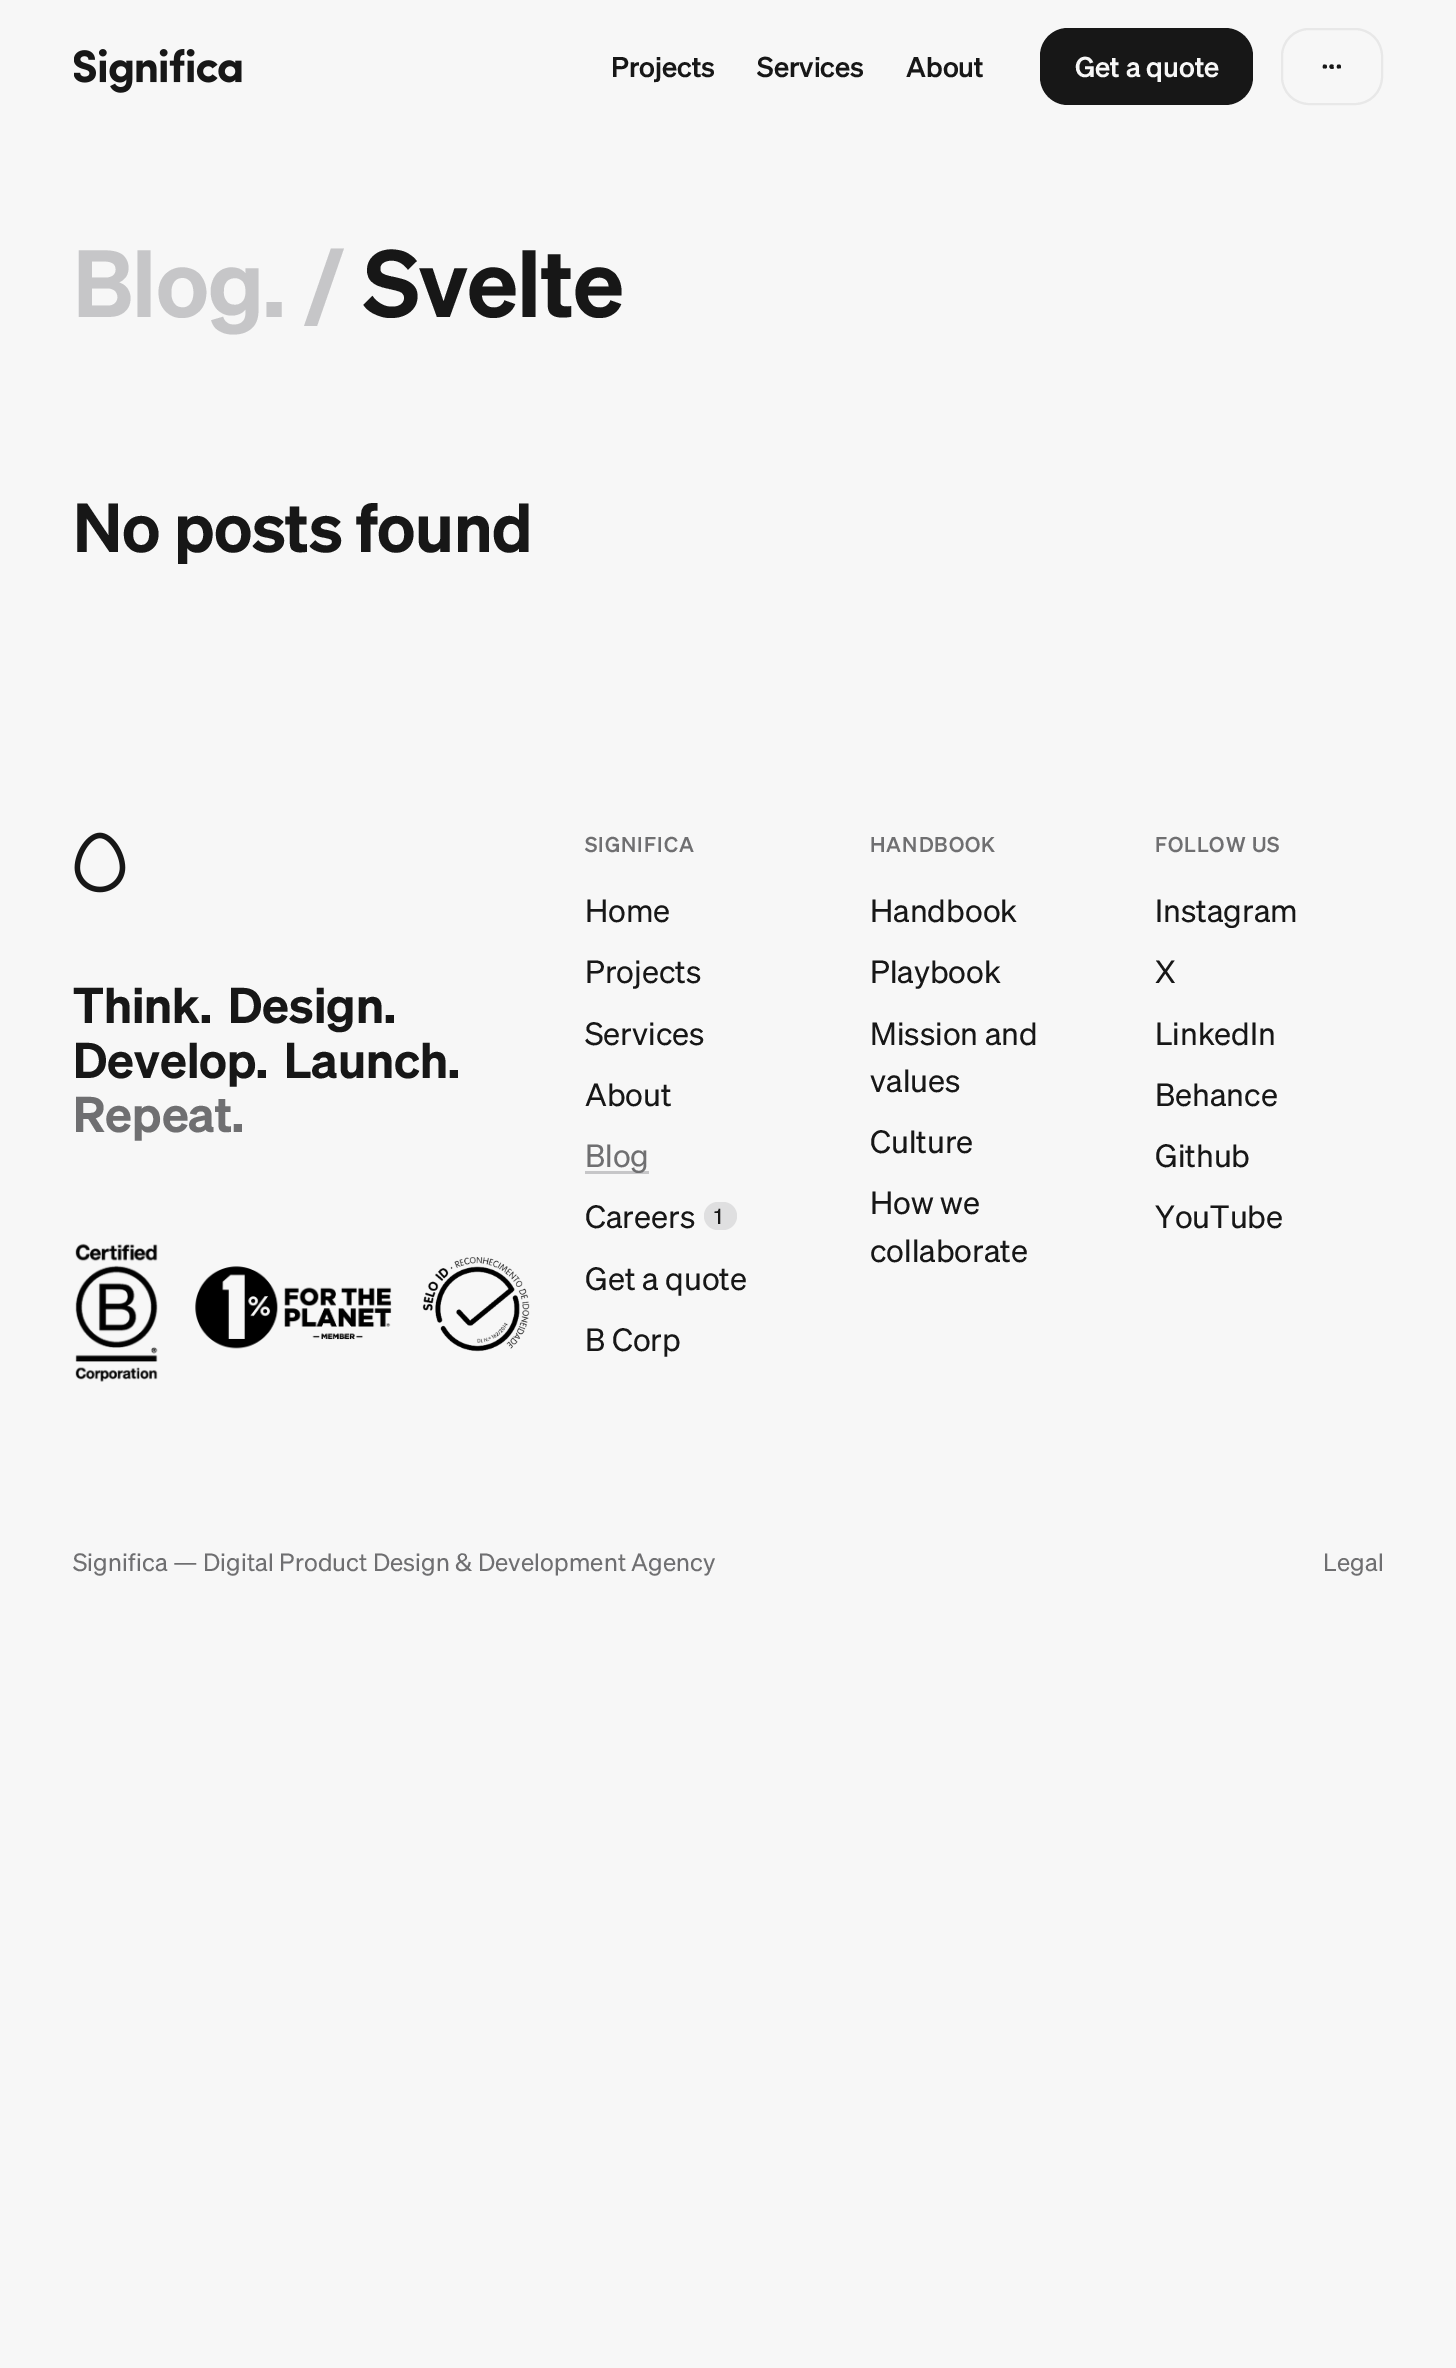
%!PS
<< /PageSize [1456 2368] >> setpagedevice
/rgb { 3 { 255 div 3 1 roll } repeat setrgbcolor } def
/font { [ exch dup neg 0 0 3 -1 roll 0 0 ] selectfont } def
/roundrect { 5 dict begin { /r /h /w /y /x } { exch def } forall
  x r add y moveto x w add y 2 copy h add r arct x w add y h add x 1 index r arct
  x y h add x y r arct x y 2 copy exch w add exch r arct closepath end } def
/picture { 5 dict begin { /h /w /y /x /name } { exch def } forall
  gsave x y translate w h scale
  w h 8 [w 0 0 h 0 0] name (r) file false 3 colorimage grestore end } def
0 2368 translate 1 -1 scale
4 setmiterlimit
247 247 247 rgb
0 0 1456 2368 rectfill
(img/1.rgb) 74 49 168 44 picture
23 23 23 rgb
1040 28 213 77 28 roundrect fill
232 232 232 rgb
2 setlinewidth
1282 29 100 75 27 roundrect stroke
(img/2.rgb) 1322 64 19 5 picture
(img/3.rgb) 74 832 52 61 picture
(img/4.rgb) 75 1243 83 139 picture
(img/5.rgb) 195 1266 197 83 picture
(img/6.rgb) 422 1257 108 95 picture
198 198 200 rgb
585 1171 64 3 rectfill
223 223 224 rgb
704 1202 33 28 14 roundrect fill
/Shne-Medium 28 font
23 23 23 rgb
[
  [(Projects) 611 77]
  [(Services) 757 77]
  [(About) 906 77]
] { aload pop moveto show } forall
247 247 247 rgb
1075 77 moveto (Get a quote) show
/Shne-SemiBold 93 font
198 198 200 rgb
73 317 moveto -0.5 0 (Blog. /) ashow
23 23 23 rgb
364 317 moveto -0.5 0 (Svelte) ashow
/Shne-SemiBold 67.5 font
73 552 moveto -0.3 0 (No posts found) ashow
/Shne-SemiBold 49 font
[
  [(Think.) 73 1023]
  [(Design.) 228 1023]
  [(Develop.) 73 1078]
  [(Launch.) 284 1078]
] { aload pop moveto show } forall
111 111 113 rgb
73 1132 moveto (Repeat.) show
/Shne-Medium 21 font
585 852 moveto 1 0 (SIGNIFICA) ashow
/Shne-Regular 31.5 font
23 23 23 rgb
[
  [(Home) 585 922]
  [(Projects) 585 983]
  [(Services) 585 1045]
  [(About) 585 1106]
] { aload pop moveto show } forall
111 111 113 rgb
585 1167 moveto (Blog) show
23 23 23 rgb
585 1228 moveto (Careers) show
/Shne-Regular 21 font
714 1224 moveto (1) show
/Shne-Regular 31.5 font
585 1290 moveto (Get a quote) show
585 1351 moveto (B Corp) show
/Shne-Medium 21 font
111 111 113 rgb
870 852 moveto 1 0 (HANDBOOK) ashow
/Shne-Regular 31.5 font
23 23 23 rgb
[
  [(Handbook) 870 922]
  [(Playbook) 870 983]
  [(Mission and) 870 1045]
  [(values) 870 1092]
  [(Culture) 870 1153]
  [(How we) 870 1214]
  [(collaborate) 870 1262]
] { aload pop moveto show } forall
/Shne-Medium 21 font
111 111 113 rgb
1155 852 moveto 1 0 (FOLLOW US) ashow
/Shne-Regular 31.5 font
23 23 23 rgb
[
  [(Instagram) 1155 922]
  [(X) 1155 983]
  [(LinkedIn) 1155 1045]
  [(Behance) 1155 1106]
  [(Github) 1155 1167]
  [(YouTube) 1155 1228]
] { aload pop moveto show } forall
/Shne-Regular 24.5 font
111 111 113 rgb
73 1571 moveto 0.12 0 (Significa — Digital Product Design & Development Agency) ashow
1323 1571 moveto 0.12 0 (Legal) ashow
showpage
